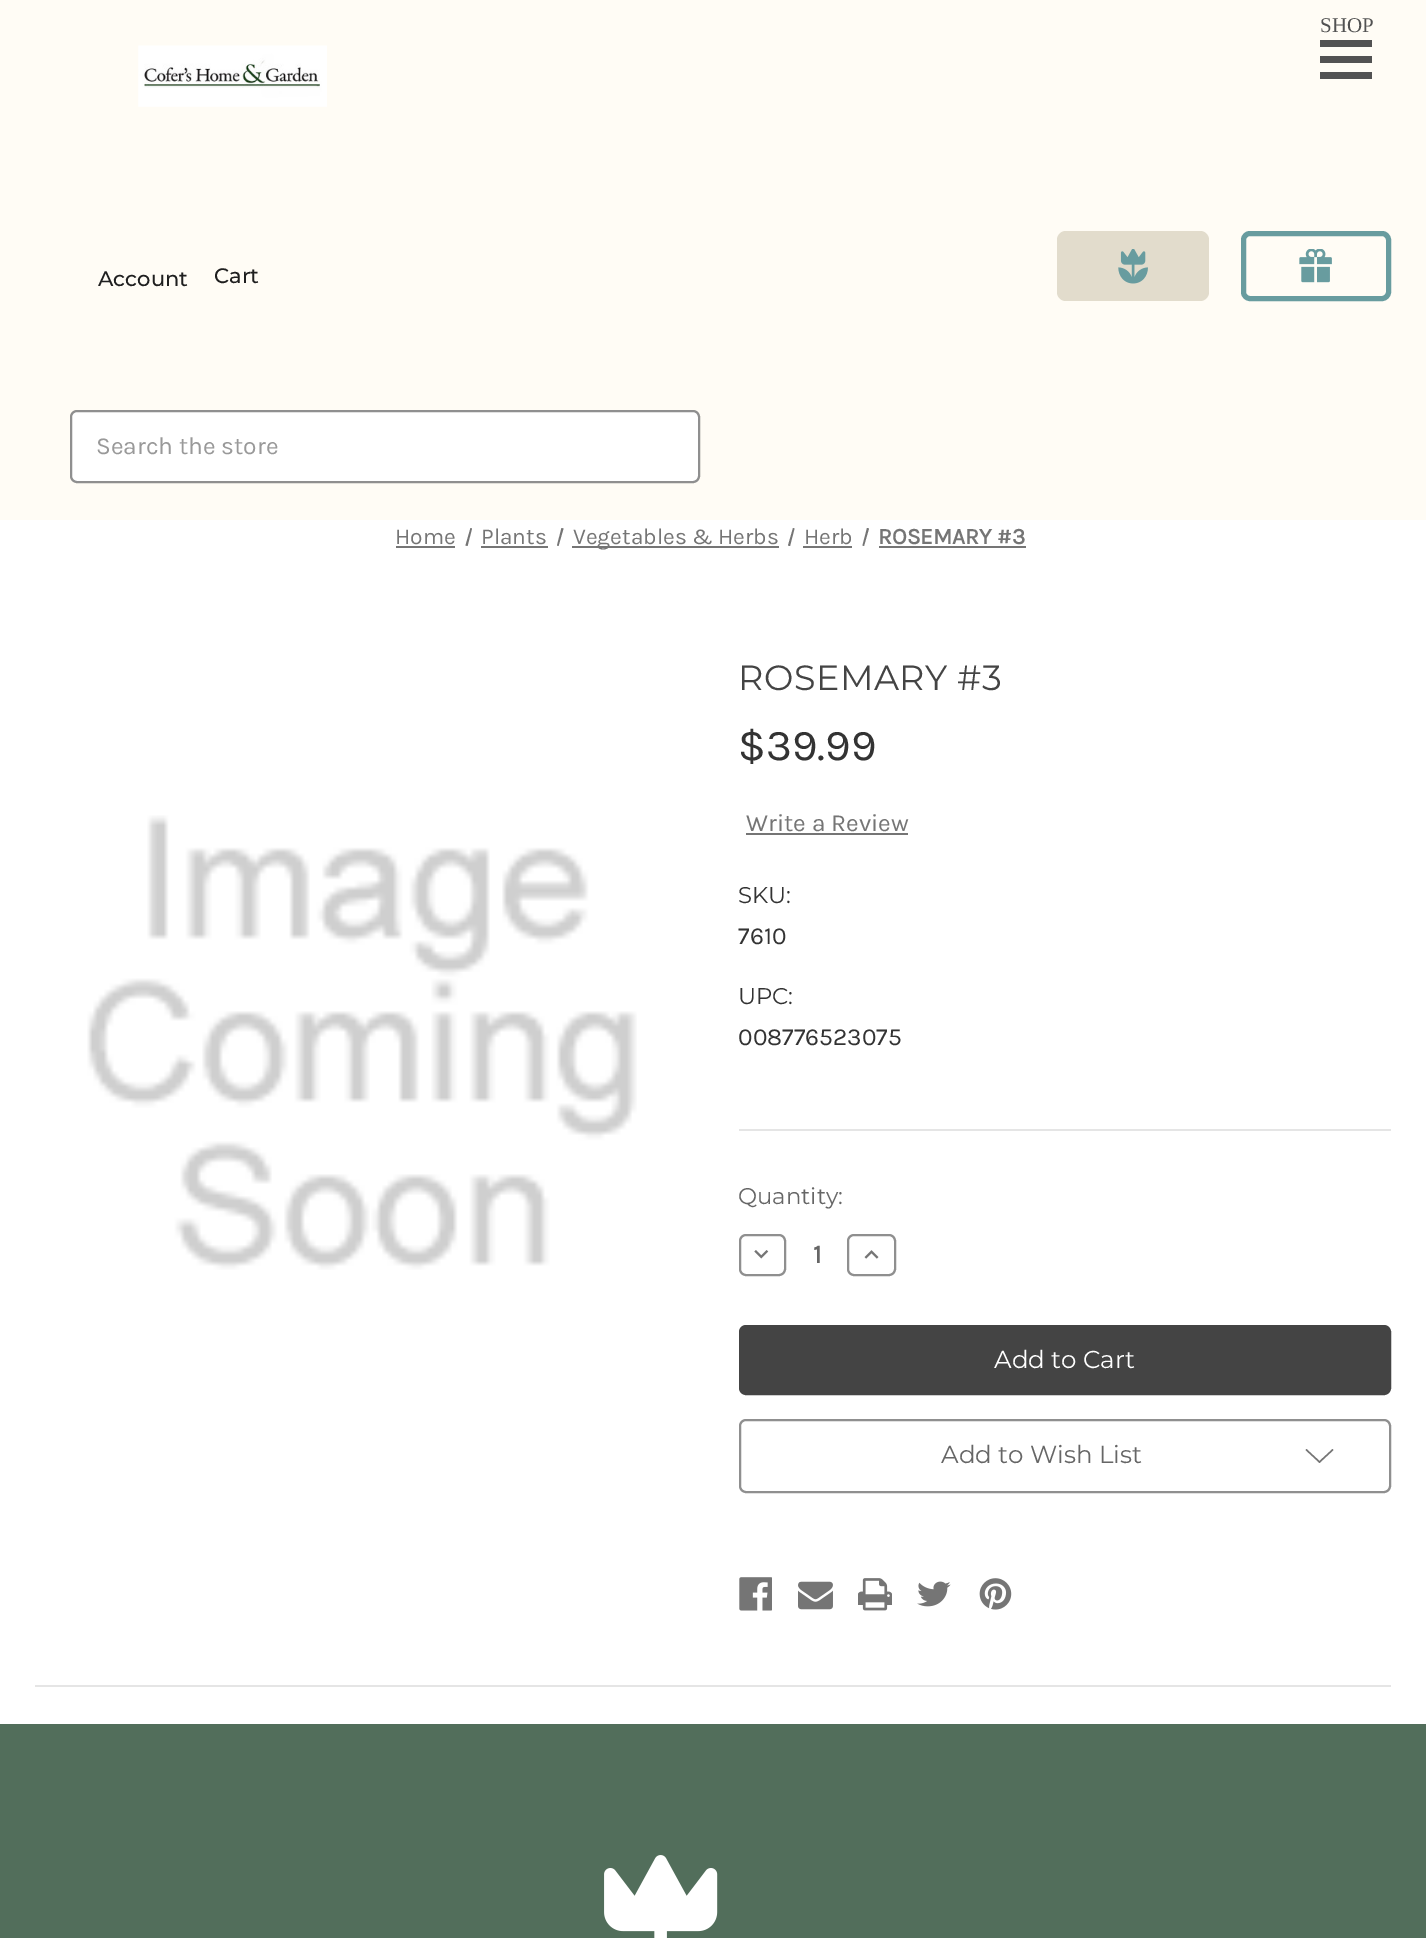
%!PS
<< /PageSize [1426 1938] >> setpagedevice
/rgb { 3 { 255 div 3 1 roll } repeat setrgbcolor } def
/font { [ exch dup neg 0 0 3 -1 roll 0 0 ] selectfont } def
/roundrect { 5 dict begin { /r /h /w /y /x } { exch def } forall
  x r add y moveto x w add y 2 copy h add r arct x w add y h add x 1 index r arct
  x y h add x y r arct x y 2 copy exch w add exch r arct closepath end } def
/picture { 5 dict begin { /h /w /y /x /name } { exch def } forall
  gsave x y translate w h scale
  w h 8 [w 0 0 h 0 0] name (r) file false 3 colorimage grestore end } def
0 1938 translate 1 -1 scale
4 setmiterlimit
255 255 255 rgb
0 0 1426 1938 rectfill
255 252 245 rgb
0 0 1426 520 rectfill
gsave
1320 40 52 39 rectclip
82 82 82 rgb
1320 40 moveto 1379 40 lineto 1379 47 lineto 1320 47 lineto closepath 1320 56 moveto 1379 56 lineto 1379 63 lineto 1320 63 lineto closepath 1320 72 moveto 1379 72 lineto 1379 79 lineto 1320 79 lineto closepath fill
grestore
(img/1.rgb) 138 45 189 62 picture
226 220 204 rgb
1057 231 152 70 9 roundrect fill
(img/2.rgb) 1118 249 30 35 picture
104 156 159 rgb
5 setlinewidth
1243.5 233.5 145 65 6.5 roundrect stroke
(img/3.rgb) 1299 249 33 34 picture
255 255 255 rgb
71 411 628 71 6 roundrect gsave fill grestore
143 143 143 rgb
2 setlinewidth
stroke
117 117 117 rgb
396 546 59 2 rectfill
470.5 528 moveto 472 528.5 lineto 467.5 546 lineto 465.5 545.5 lineto closepath fill
481 546 67 2 rectfill
561.5 528 moveto 563.5 528.5 lineto 558.5 546 lineto 557 545.5 lineto closepath fill
572 546 207 2 rectfill
793 528 moveto 794.5 528.5 lineto 790 546 lineto 788 545.5 lineto closepath fill
803 546 49 2 rectfill
867 528 moveto 869 528.5 lineto 864 546 lineto 862.5 545.5 lineto closepath fill
879 546 147 2 rectfill
(img/4.rgb) 87 815 550 455 picture
229 229 229 rgb
739 1129 652 2 rectfill
117 117 117 rgb
746 833 162 2 rectfill
143 143 143 rgb
740 1235 45 40 6 roundrect stroke
(img/5.rgb) 754 1250 15 9 picture
848 1235 47 40 6 roundrect stroke
(img/6.rgb) 864 1250 15 9 picture
68 68 68 rgb
740 1326 650 68 6 roundrect gsave fill grestore
stroke
143 143 143 rgb
740 1420 650 72 6 roundrect stroke
117 117 117 rgb
1319.5 1461 moveto 1332.5 1449 lineto 1333.5 1450 lineto 1319.5 1463 lineto 1305.5 1450 lineto 1306.5 1449 lineto closepath eofill
(img/7.rgb) 739 1577 33 34 picture
(img/8.rgb) 798 1581 35 29 picture
(img/9.rgb) 858 1578 34 33 picture
(img/10.rgb) 917 1581 34 26 picture
(img/11.rgb) 979 1578 33 32 picture
229 229 229 rgb
35 1685 1356 2 rectfill
82 110 91 rgb
0 1724 1426 214 rectfill
(img/12.rgb) 604 1855 114 83 picture
/LiberationSerif-Regular 21 font
82 82 82 rgb
1320 32 moveto (SHOP) show
/Montserrat-Medium 21 font
31 31 31 rgb
98 286 moveto (Account) show
214 283 moveto (Cart) show
/Karla-Regular 24.5 font
153 153 153 rgb
96 454 moveto (Search the store) show
/Karla-Regular 22.75 font
117 117 117 rgb
[
  [(Home) 395 544]
  [(Plants) 481 544]
  [(Vegetables & Herbs) 573 544]
  [(Herb) 804 544]
] { aload pop moveto show } forall
/Karla-Bold 22.75 font
878 544 moveto (ROSEMARY #3) show
/Montserrat-Regular 35 font
68 68 68 rgb
738 690 moveto 0.5 0 (ROSEMARY #3) ashow
/Karla-Regular 44 font
51 51 51 rgb
738 760 moveto ($39.99) show
/Karla-Regular 24.5 font
117 117 117 rgb
746 831 moveto (Write a Review) show
/Montserrat-Regular 22.75 font
51 51 51 rgb
738 903 moveto (SKU:) show
/Karla-Regular 24.5 font
738 944 moveto (7610) show
/Montserrat-Regular 22.75 font
738 1004 moveto (UPC:) show
/Karla-Regular 24.5 font
738 1045 moveto (008776523075) show
/Montserrat-Regular 22.75 font
102 102 102 rgb
738 1204 moveto (Quantity:) show
/Karla-Bold 26 font
813 1263 moveto (1) show
/Montserrat-Regular 24.5 font
255 255 255 rgb
994 1368 moveto (Add to Cart) show
102 102 102 rgb
941 1463 moveto (Add to Wish List) show
showpage
